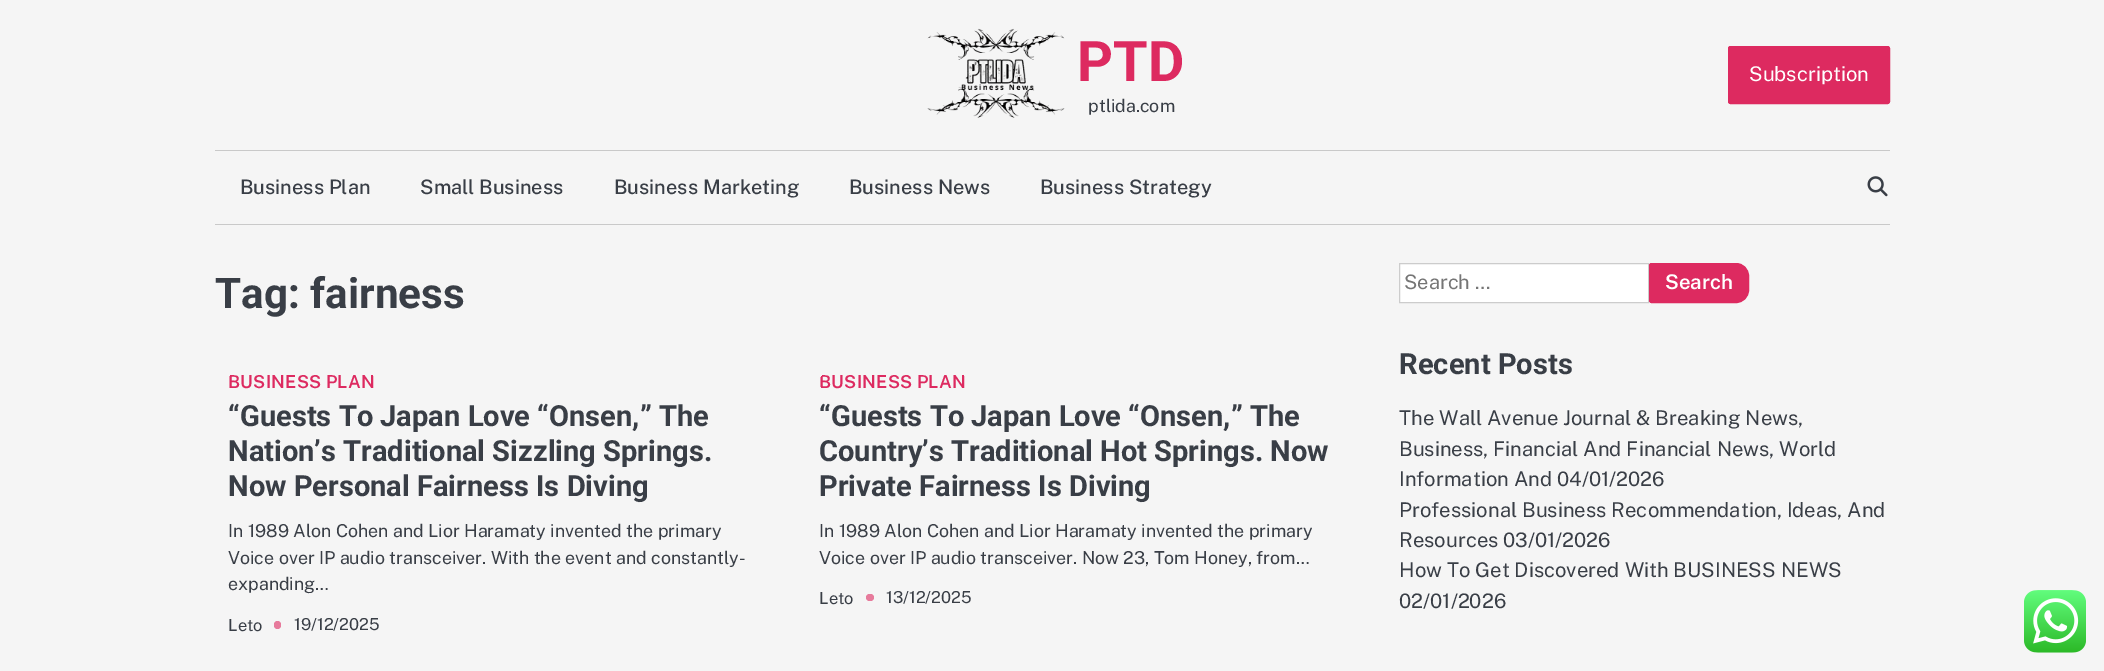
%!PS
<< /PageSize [2104 671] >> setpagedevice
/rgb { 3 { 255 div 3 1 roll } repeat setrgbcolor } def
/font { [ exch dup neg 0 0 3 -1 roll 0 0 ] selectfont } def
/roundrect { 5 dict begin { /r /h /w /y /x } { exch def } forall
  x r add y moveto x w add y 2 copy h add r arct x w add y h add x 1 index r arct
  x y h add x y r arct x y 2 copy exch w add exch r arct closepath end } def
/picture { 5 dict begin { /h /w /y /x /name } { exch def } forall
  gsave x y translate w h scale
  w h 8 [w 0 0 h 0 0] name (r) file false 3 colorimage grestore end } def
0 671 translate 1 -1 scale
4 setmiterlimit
245 245 245 rgb
0 0 2104 671 rectfill
(img/1.rgb) 927 28 138 90 picture
221 42 96 rgb
1728.5 46.5 161 57 2 roundrect gsave fill grestore
stroke
201 201 201 rgb
215 150 1675 1 rectfill
215 224 1675 1 rectfill
(img/2.rgb) 1867 176 21 21 picture
231 123 156 rgb
274 621 7 8 3.5 roundrect fill
866 594 8 7 3.5 roundrect fill
255 255 255 rgb
1399.5 263.5 moveto 1648.5 263.5 lineto 1648.5 302.5 lineto 1399.5 302.5 lineto closepath gsave fill grestore
204 204 204 rgb
stroke
221 42 96 rgb
1651.5 263.5 moveto 1736 263.5 lineto 1743 263.5 1748.5 269 1748.5 276 curveto 1748.5 290 lineto 1748.5 297 1743 302.5 1736 302.5 curveto 1651.5 302.5 lineto 1650.5 302.5 1649.5 301.5 1649.5 300.5 curveto 1649.5 265.5 lineto 1649.5 264.5 1650.5 263.5 1651.5 263.5 curveto closepath gsave fill grestore
stroke
(img/3.rgb) 2024 590 62 63 picture
/Roboto-Bold 56 font
1077 81 moveto (PTD) show
/PublicSans-Regular 17.8 font
57 62 70 rgb
1088 112 moveto (ptlida.com) show
/PublicSans-Regular 20.3 font
255 255 255 rgb
1749 81 moveto (Subscription) show
/PublicSans-Medium 20 font
57 62 70 rgb
[
  [(Business Plan) 240 194]
  [(Small Business) 420 194]
  [(Business Marketing) 614 194]
  [(Business News) 849 194]
  [(Business Strategy) 1040 194]
] { aload pop moveto show } forall
/Roboto-Bold 42.25 font
215 308 moveto (Tag: fairness) show
gsave
228 371 147 22 11 roundrect clip newpath
/PublicSans-SemiBold 17.8 font
221 42 96 rgb
228 388 moveto 0.25 0 (BUSINESS PLAN) ashow
grestore
/Roboto-Bold 29.1 font
[
  [(“Guests To Japan Love “Onsen,” The) 228 426]
  [(Nation’s Traditional Sizzling Springs.) 228 461]
  [(Now Personal Fairness Is Diving) 228 496]
] { aload pop moveto show } forall
/PublicSans-Regular 17.8 font
[
  [(In 1989 Alon Cohen and Lior Haramaty invented the primary) 228 537]
  [(Voice over IP audio transceiver. With the event and constantly-) 228 564]
  [(expanding…) 228 590]
] { aload pop moveto show } forall
/PublicSans-Regular 16.5 font
228 631 moveto (Leto) show
294 630 moveto (19/12/2025) show
gsave
820 371 146 22 11 roundrect clip newpath
/PublicSans-SemiBold 17.8 font
221 42 96 rgb
819 388 moveto 0.25 0 (BUSINESS PLAN) ashow
grestore
/Roboto-Bold 29.1 font
[
  [(“Guests To Japan Love “Onsen,” The) 819 426]
  [(Country’s Traditional Hot Springs. Now) 819 461]
  [(Private Fairness Is Diving) 819 496]
] { aload pop moveto show } forall
/PublicSans-Regular 17.8 font
819 537 moveto (In 1989 Alon Cohen and Lior Haramaty invented the primary) show
819 564 moveto (Voice over IP audio transceiver. Now 23, Tom Honey, from…) show
/PublicSans-Regular 16.5 font
819 604 moveto (Leto) show
886 603 moveto (13/12/2025) show
/PublicSans-Regular 20 font
117 117 117 rgb
1404 289 moveto (Search …) show
/PublicSans-SemiBold 20.3 font
255 255 255 rgb
1665 289 moveto (Search) show
/Roboto-Bold 29.1 font
57 62 70 rgb
1399 374 moveto (Recent Posts) show
/PublicSans-Regular 20.3 font
[
  [(The Wall Avenue Journal & Breaking News,) 1399 425]
  [(Business, Financial And Financial News, World) 1399 456]
  [(Information And) 1399 486]
] { aload pop moveto show } forall
/PublicSans-Regular 20 font
1557 486 moveto (04/01/2026) show
/PublicSans-Regular 20.3 font
1399 517 moveto (Professional Business Recommendation, Ideas, And) show
1399 547 moveto (Resources) show
/PublicSans-Regular 20 font
1503 547 moveto (03/01/2026) show
/PublicSans-Regular 20.3 font
1399 577 moveto (How To Get Discovered With BUSINESS NEWS) show
/PublicSans-Regular 20 font
1399 608 moveto (02/01/2026) show
showpage
